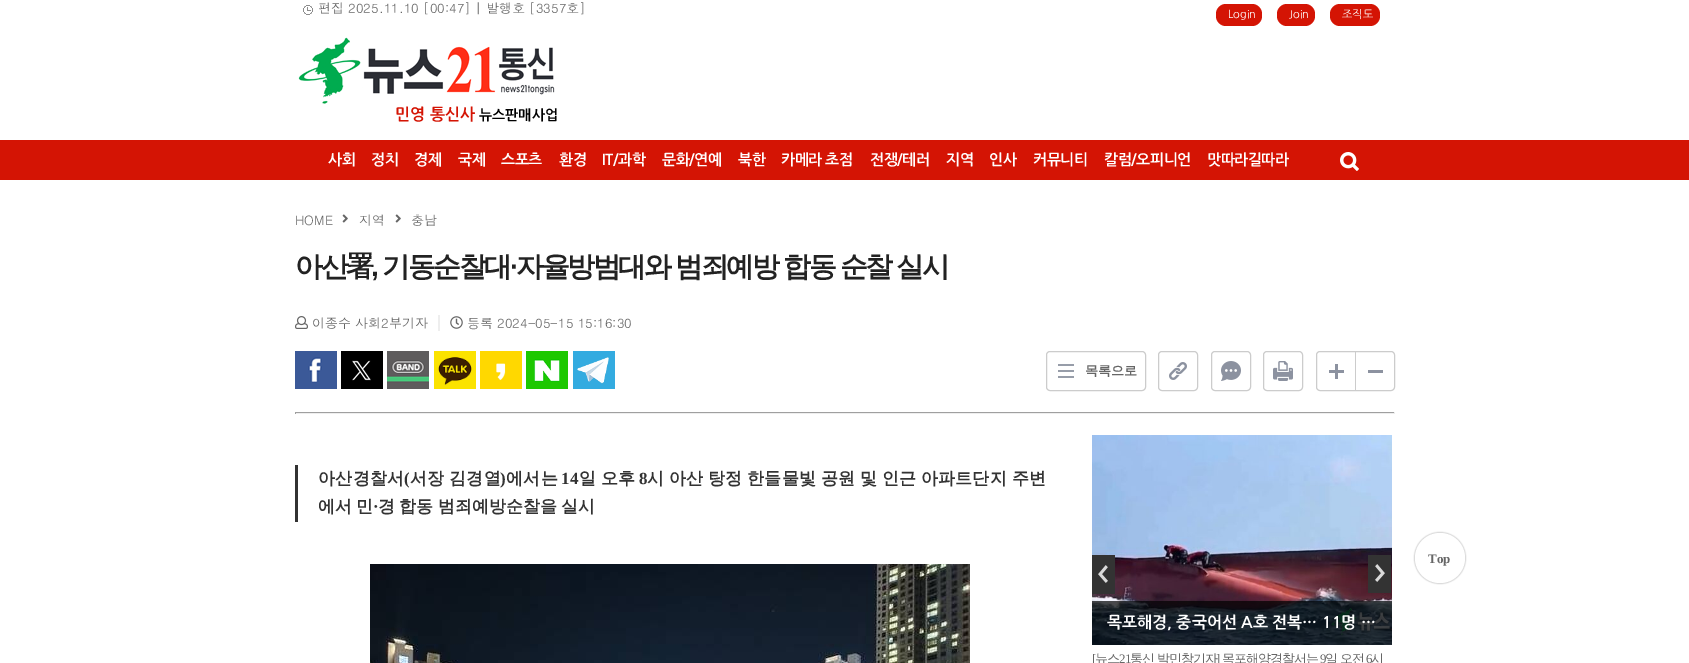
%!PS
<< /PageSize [1689 663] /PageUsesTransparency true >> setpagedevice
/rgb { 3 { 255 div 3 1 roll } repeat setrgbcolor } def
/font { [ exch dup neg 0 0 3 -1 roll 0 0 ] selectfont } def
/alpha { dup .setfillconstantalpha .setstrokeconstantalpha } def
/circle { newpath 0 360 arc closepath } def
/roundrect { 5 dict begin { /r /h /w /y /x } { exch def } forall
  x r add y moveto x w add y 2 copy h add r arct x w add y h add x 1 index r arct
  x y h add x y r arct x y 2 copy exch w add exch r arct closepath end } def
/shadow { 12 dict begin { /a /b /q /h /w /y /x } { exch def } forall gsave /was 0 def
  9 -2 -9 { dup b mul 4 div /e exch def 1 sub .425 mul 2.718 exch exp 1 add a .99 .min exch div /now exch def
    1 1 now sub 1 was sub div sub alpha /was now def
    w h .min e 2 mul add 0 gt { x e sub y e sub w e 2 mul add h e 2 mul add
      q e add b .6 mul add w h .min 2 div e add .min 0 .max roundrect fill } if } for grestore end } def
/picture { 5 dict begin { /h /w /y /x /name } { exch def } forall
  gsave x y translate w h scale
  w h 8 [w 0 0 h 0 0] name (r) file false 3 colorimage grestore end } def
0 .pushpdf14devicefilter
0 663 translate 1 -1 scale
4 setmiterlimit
255 255 255 rgb
0 0 1689 663 rectfill
(img/1.rgb) 303 5 10 10 picture
212 20 4 rgb
1216 4 46 22 10 roundrect fill
1277 4 38 22 10 roundrect fill
1330 4 50 22 10 roundrect fill
(img/2.rgb) 298 37 257 67 picture
0 140 1689 40 rectfill
(img/3.rgb) 1340 152 19 19 picture
215 215 215 rgb
1414 532 52 52 26 0.5 1 shadow
255 255 255 rgb
1440 558 25 circle fill
(img/4.rgb) 342 214 6 9 picture
(img/4.rgb) 395 214 6 9 picture
(img/5.rgb) 295 316 13 13 picture
238 238 238 rgb
438 315 2 16 rectfill
(img/6.rgb) 450 316 13 13 picture
(img/7.rgb) 295 351 42 38 picture
(img/8.rgb) 341 351 42 38 picture
(img/9.rgb) 387 351 42 38 picture
(img/10.rgb) 434 351 42 38 picture
(img/11.rgb) 480 351 42 38 picture
(img/12.rgb) 526 351 42 38 picture
(img/13.rgb) 573 351 42 38 picture
204 204 204 rgb
1046.5 351.5 99 39 3.5 roundrect stroke
(img/14.rgb) 1058 364 16 14 picture
1158.5 351.5 39 39 3.5 roundrect stroke
(img/15.rgb) 1169 362 18 18 picture
1211.5 351.5 39 39 3.5 roundrect stroke
(img/16.rgb) 1221 361 20 20 picture
1263.5 351.5 39 39 3.5 roundrect stroke
(img/17.rgb) 1273 361 20 20 picture
1316.5 351.5 78 39 3.5 roundrect stroke
1355 352 1 38 rectfill
(img/18.rgb) 1329 364 15 15 picture
[
  [1368 370 15 3 140 146 160]
  [295 412 1100 1 159 159 159]
  [1394 412 1 2 238 238 238]
  [295 413 1100 1 238 238 238]
  [295 412 1 2 159 159 159]
  [295 465 3 57 50 50 50]
] { aload pop rgb rectfill } forall
(img/19.rgb) 370 564 600 99 picture
(img/22.rgb) 1092 435 300 210 picture
(img/20.rgb) 1092 555 23 39 picture
(img/21.rgb) 1368 555 23 38 picture
0.7 alpha
0 0 0 rgb
1092 601 300 44 rectfill
/Dotum-Regular 13 font
1 alpha
102 102 102 rgb
318 13 moveto (편집 2025.11.10 [00:47] | 발행호 [3357호]) show
/NanumGothic-Regular 11 font
255 255 255 rgb
[
  [(Login) 1228 18]
  [(Join) 1289 18]
  [(조직도) 1342 18]
] { aload pop moveto show } forall
/NanumGothic-Bold 16 font
212 20 4 rgb
395 120 moveto (민영 통신사) show
/NanumGothic-Bold 14 font
0 0 0 rgb
479 120 moveto (뉴스판매사업) show
/NanumGothic-Bold 15 font
255 255 255 rgb
328 165 moveto -0.5 0 (사회) ashow
371 165 moveto -0.5 0 (정치) ashow
414 165 moveto -0.5 0 (경제) ashow
458 165 moveto -0.5 0 (국제) ashow
501 165 moveto -0.5 0 (스포츠) ashow
559 165 moveto -0.5 0 (환경) ashow
602 165 moveto -0.5 0 (IT/과학) ashow
662 165 moveto -0.5 0 (문화/연예) ashow
738 165 moveto -0.5 0 (북한) ashow
781 165 moveto -0.5 0 (카메라 초점) ashow
870 165 moveto -0.5 0 (전쟁/테러) ashow
946 165 moveto -0.5 0 (지역) ashow
989 165 moveto -0.5 0 (인사) ashow
1033 165 moveto -0.5 0 (커뮤니티) ashow
1104 165 moveto -0.5 0 (칼럼/오피니언) ashow
1207 165 moveto -0.5 0 (맛따라길따라) ashow
/LiberationSerif-Bold 13 font
102 102 102 rgb
1428 563 moveto (Top) show
/Dotum-Regular 13 font
[
  [(HOME) 295 225]
  [(지역) 359 225]
  [(충남) 411 225]
] { aload pop moveto show } forall
/WenQuanYiZenHei-Bold 28 font
34 34 34 rgb
295 276 moveto -2.4 0 (아산署) ashow
382 276 moveto -2.4 0 (기동순찰대) ashow
/LiberationSans-Bold 28 font
510 276 moveto -2.4 0 (·) ashow
/WenQuanYiZenHei-Bold 28 font
516 276 moveto -0.5 0 32 -2.4 0 (자율방범대와 범죄예방 합동 순찰 실시) awidthshow
/LiberationSans-Bold 28 font
371 276 moveto -2.4 0 (,) ashow
/Dotum-Regular 13 font
102 102 102 rgb
312 328 moveto (이종수 사회2부기자) show
467 328 moveto (등록 2024-05-15 15:16:30) show
/WenQuanYiZenHei-Bold 13 font
1085 375 moveto (목록으로) show
/WenQuanYiZenHei-Bold 17 font
51 51 51 rgb
318 484 moveto 0.25 0 (아산경찰서) ashow
/LiberationSerif-Bold 17 font
404 484 moveto 0.25 0 (\() ashow
/WenQuanYiZenHei-Bold 17 font
410 484 moveto -0.75 0 32 0.25 0 (서장 김경열) awidthshow
/LiberationSerif-Bold 17 font
500 484 moveto 0.25 0 (\)) ashow
/WenQuanYiZenHei-Bold 17 font
506 484 moveto 0.25 0 (에서는) ashow
/LiberationSerif-Bold 17 font
561 484 moveto 0.25 0 (14) ashow
/WenQuanYiZenHei-Bold 17 font
579 484 moveto -0.75 0 32 0.25 0 (일 오후) awidthshow
/LiberationSerif-Bold 17 font
639 484 moveto 0.25 0 (8) ashow
/WenQuanYiZenHei-Bold 17 font
647 484 moveto -0.75 0 32 0.25 0 (시 아산 탕정 한들물빛 공원 및 인근 아파트단지 주변) awidthshow
318 512 moveto -0.75 0 32 (에서 민) widthshow
/LiberationSerif-Bold 17 font
373 512 moveto (·) show
/WenQuanYiZenHei-Bold 17 font
378 512 moveto -0.75 0 32 (경 합동 범죄예방순찰을 실시) widthshow
/NanumGothic-Bold 16 font
255 255 255 rgb
1107 628 moveto (목포해경, 중국어선 A호 전복… 11명 …) show
/LiberationSerif-Regular 13 font
102 102 102 rgb
1092 663 moveto -1 0 ([) ashow
/WenQuanYiZenHei-Medium 13 font
1095 663 moveto -1 0 (뉴스) ashow
/LiberationSerif-Regular 13 font
1119 663 moveto -1 0 (21) ashow
/WenQuanYiZenHei-Medium 13 font
1130 663 moveto -1 0 (통신 박민창기자) ashow
1222 663 moveto -1 0 (목포해양경찰서는) ashow
1325 663 moveto -1 0 (일 오전) ashow
/LiberationSerif-Regular 13 font
1216 663 moveto -1 0 (]) ashow
1320 663 moveto -1 0 (9) ashow
1366 663 moveto -1 0 (6) ashow
/WenQuanYiZenHei-Medium 13 font
1371 663 moveto -1 0 (시) ashow
.poppdf14devicefilter showpage
